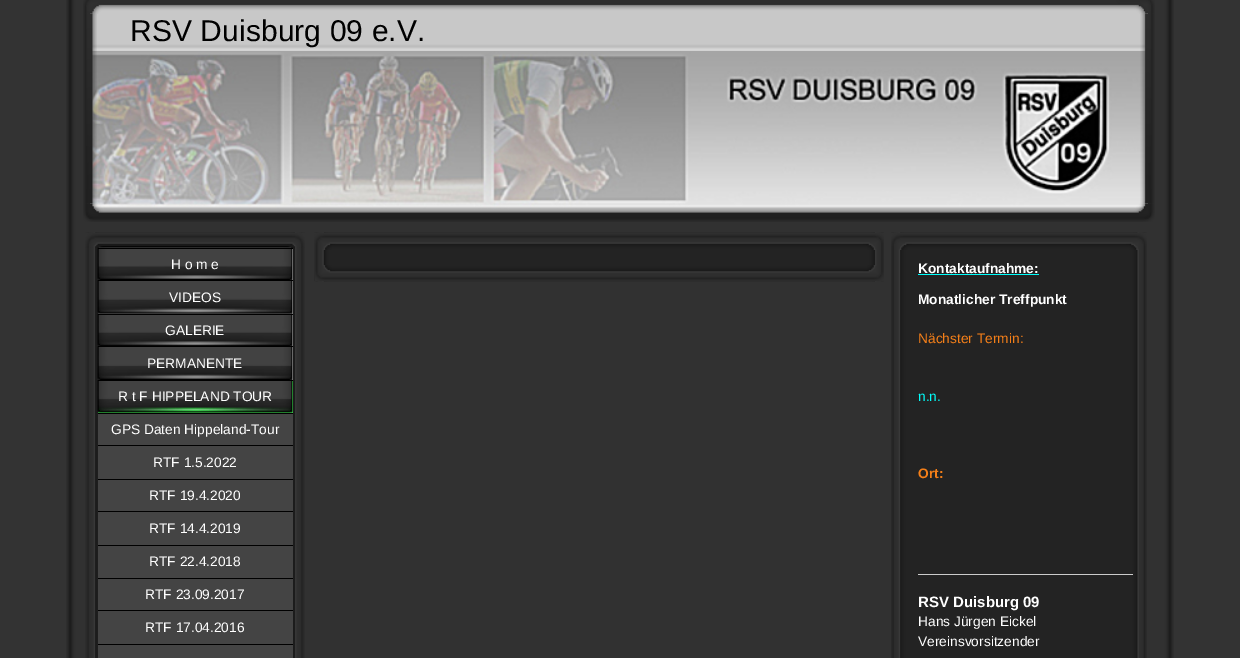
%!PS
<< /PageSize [1240 658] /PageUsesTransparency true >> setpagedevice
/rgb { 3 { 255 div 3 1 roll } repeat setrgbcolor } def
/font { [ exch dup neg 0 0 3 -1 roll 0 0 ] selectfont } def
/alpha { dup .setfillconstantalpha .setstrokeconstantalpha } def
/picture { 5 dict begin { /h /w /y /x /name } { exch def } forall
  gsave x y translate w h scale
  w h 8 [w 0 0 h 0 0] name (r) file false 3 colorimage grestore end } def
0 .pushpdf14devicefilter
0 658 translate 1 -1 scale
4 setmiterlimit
51 51 51 rgb
0 0 1240 658 rectfill
(img/1.rgb) 66 0 1108 658 picture
(img/4.rgb) 90 4 1058 209 picture
0.5 alpha
255 255 255 rgb
90 4 1058 47 rectfill
1 alpha
(img/3.rgb) 83 13 14 191 picture
(img/6.rgb) 83 203 1072 19 picture
(img/5.rgb) 1140 13 15 191 picture
(img/2.rgb) 83 0 1072 14 picture
(img/7.rgb) 85 232 220 426 picture
(img/8.rgb) 85 232 220 16 picture
204 204 204 rgb
292 249 1 31 rectfill
(img/9.rgb) 97 247 196 33 picture
0 0 0 rgb
98 248 195 1 rectfill
204 204 204 rgb
98 281 195 33 rectfill
(img/10.rgb) 97 280 196 34 picture
0 0 0 rgb
98 280 195 1 rectfill
204 204 204 rgb
292 315 1 31 rectfill
(img/11.rgb) 97 313 196 34 picture
0 0 0 rgb
98 314 195 1 rectfill
204 204 204 rgb
292 347 1 33 rectfill
(img/12.rgb) 97 346 196 34 picture
0 0 0 rgb
98 346 195 1 rectfill
67 254 89 rgb
98 381 195 32 rectfill
(img/13.rgb) 97 380 196 33 picture
[
  [98 380 195 1 0 0 0]
  [98 414 195 31 68 68 68]
  [98 413 195 1 0 0 0]
  [98 446 195 33 68 68 68]
  [98 445 195 1 0 0 0]
  [98 480 195 31 68 68 68]
  [98 479 195 1 0 0 0]
  [98 512 195 33 68 68 68]
  [98 511 195 1 0 0 0]
  [98 546 195 32 68 68 68]
  [98 545 195 1 0 0 0]
  [98 579 195 31 68 68 68]
  [98 578 195 1 0 0 0]
  [98 611 195 33 68 68 68]
  [98 610 195 1 0 0 0]
  [98 645 195 13 68 68 68]
  [98 644 195 1 0 0 0]
] { aload pop rgb rectfill } forall
(img/14.rgb) 314 232 570 50 picture
(img/15.rgb) 314 232 570 18 picture
(img/16.rgb) 315 265 569 16 picture
(img/17.rgb) 891 232 256 426 picture
(img/18.rgb) 891 232 256 18 picture
1 254 251 rgb
918 274 121 1 rectfill
204 204 204 rgb
918 574 215 1 rectfill
/LiberationSans-Regular 30 font
0 0 0 rgb
130 41 moveto 0.1 0 (RSV Duisburg 09 e.V.) ashow
/LiberationSans-Regular 13.75 font
255 255 255 rgb
[
  [(H o m e) 171 269]
  [(VIDEOS) 169 302]
  [(GALERIE) 165 335]
  [(PERMANENTE) 147 368]
  [(R t F HIPPELAND TOUR) 118 401]
  [(GPS Daten Hippeland-Tour) 111 434]
  [(RTF 1.5.2022) 153 467]
  [(RTF 19.4.2020) 149 500]
  [(RTF 14.4.2019) 149 533]
  [(RTF 22.4.2018) 149 566]
  [(RTF 23.09.2017) 145 599]
  [(RTF 17.04.2016) 145 632]
] { aload pop moveto show } forall
/LiberationSans-Bold 13.75 font
918 273 moveto (Kontaktaufnahme:) show
918 304 moveto (Monatlicher Treffpunkt) show
/LiberationSans-Regular 13.75 font
245 127 24 rgb
918 343 moveto (Nächster Termin:) show
1 254 251 rgb
918 401 moveto (n.n.) show
/LiberationSans-Bold 13.75 font
245 127 24 rgb
918 478 moveto (Ort:) show
/LiberationSans-Bold 15 font
255 255 255 rgb
918 607 moveto (RSV Duisburg 09) show
/LiberationSans-Regular 13.75 font
918 626 moveto (Hans Jürgen Eickel) show
918 646 moveto (Vereinsvorsitzender) show
.poppdf14devicefilter showpage
